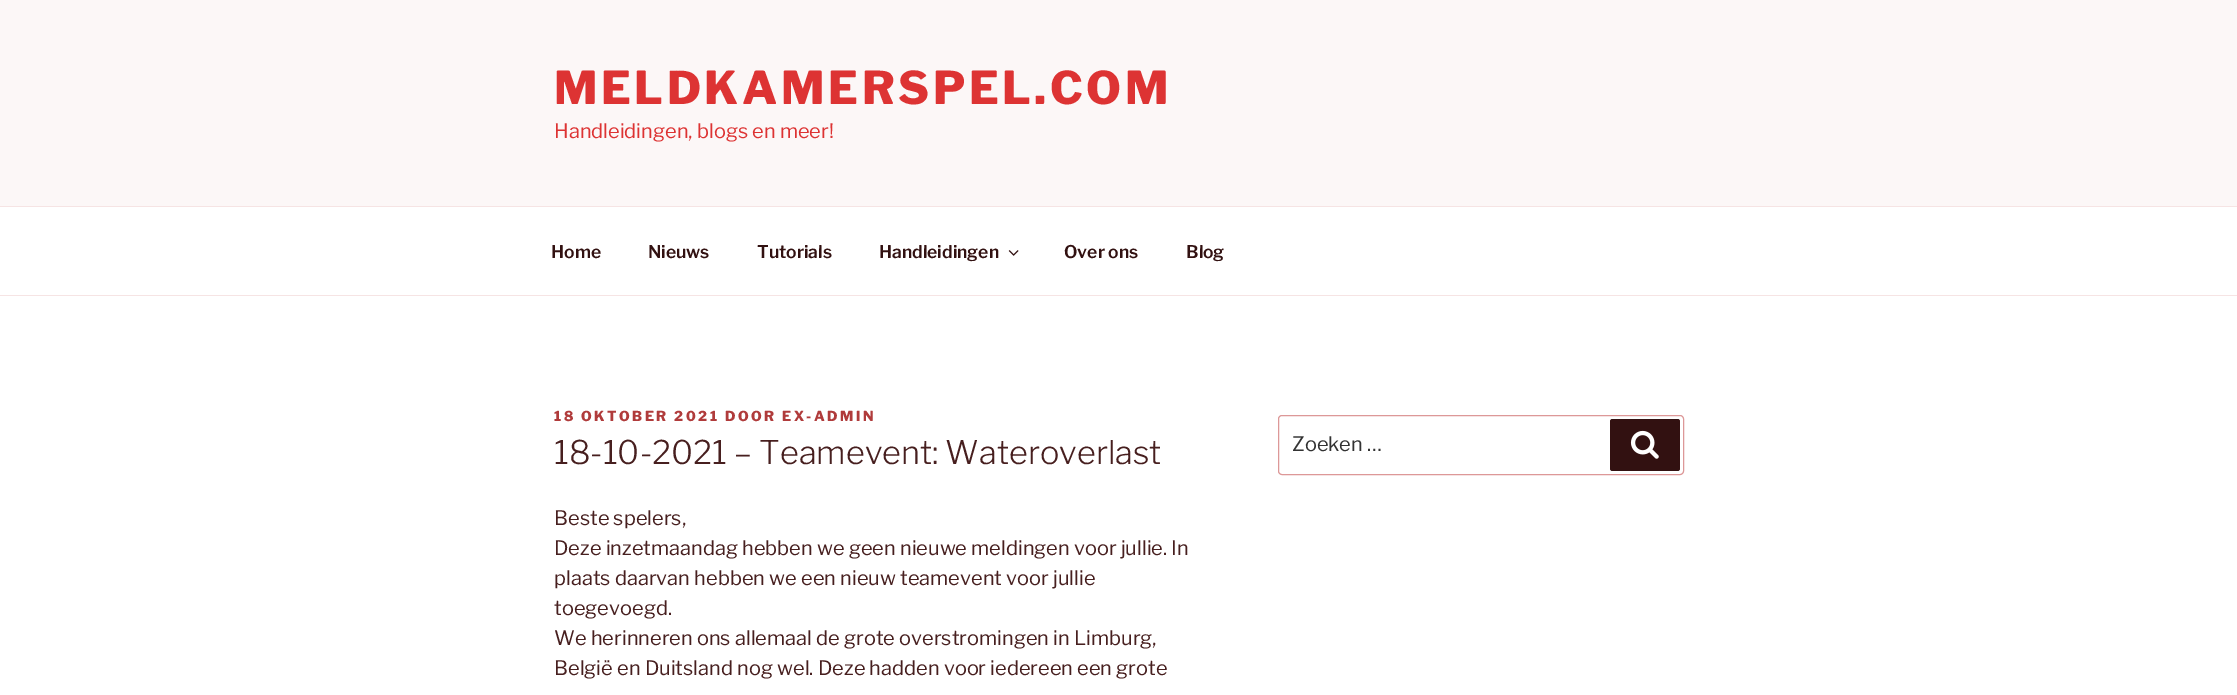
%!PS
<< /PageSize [2237 695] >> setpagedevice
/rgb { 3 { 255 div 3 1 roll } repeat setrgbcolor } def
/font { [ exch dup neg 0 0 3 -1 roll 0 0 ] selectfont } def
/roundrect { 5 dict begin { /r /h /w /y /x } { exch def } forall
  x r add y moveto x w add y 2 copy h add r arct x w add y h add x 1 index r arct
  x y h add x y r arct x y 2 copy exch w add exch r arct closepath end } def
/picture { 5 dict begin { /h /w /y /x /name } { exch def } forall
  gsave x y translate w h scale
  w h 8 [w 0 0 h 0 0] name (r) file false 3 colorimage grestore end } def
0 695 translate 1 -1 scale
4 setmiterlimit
255 255 255 rgb
0 0 2237 695 rectfill
[
  [0 0 2237 206 252 247 247]
  [0 206 2237 1 246 228 228]
  [0 295 2237 1 246 228 228]
] { aload pop rgb rectfill } forall
(img/1.rgb) 1008 250 11 6 picture
221 152 152 rgb
1278.5 415.5 405 59 3.5 roundrect stroke
50 17 17 rgb
1610 419 70 52 2.5 roundrect fill
(img/2.rgb) 1630 430 29 29 picture
/LibreFranklin-Thin 45 font
221 51 51 rgb
554 104 moveto 3.6 0 (MELDKAMERSPEL.COM) ashow
/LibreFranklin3-Thin 20 font
554 138 moveto (Handleidingen, blogs en meer!) show
/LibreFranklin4-Thin 17.5 font
50 17 17 rgb
[
  [(Home) 551 258]
  [(Nieuws) 648 258]
  [(Tutorials) 757 258]
  [(Handleidingen) 879 258]
  [(Over ons) 1064 258]
  [(Blog) 1186 258]
] { aload pop moveto show } forall
/LibreFranklin-Thin 13.75 font
176 59 59 rgb
554 421 moveto 2.5 0 (18 OKTOBER 2021 DOOR EX-ADMIN) ashow
/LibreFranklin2-Thin 32.5 font
71 31 31 rgb
554 464 moveto (18-10-2021 – Teamevent: Wateroverlast) show
/LibreFranklin3-Thin 20 font
[
  [(Beste spelers,) 554 525]
  [(Deze inzetmaandag hebben we geen nieuwe meldingen voor jullie. In) 554 555]
  [(plaats daarvan hebben we een nieuw teamevent voor jullie) 554 585]
  [(toegevoegd.) 554 615]
  [(We herinneren ons allemaal de grote overstromingen in Limburg,) 554 645]
  [(België en Duitsland nog wel. Deze hadden voor iedereen een grote) 554 675]
] { aload pop moveto show } forall
51 51 51 rgb
1292 451 moveto (Zoeken …) show
showpage
